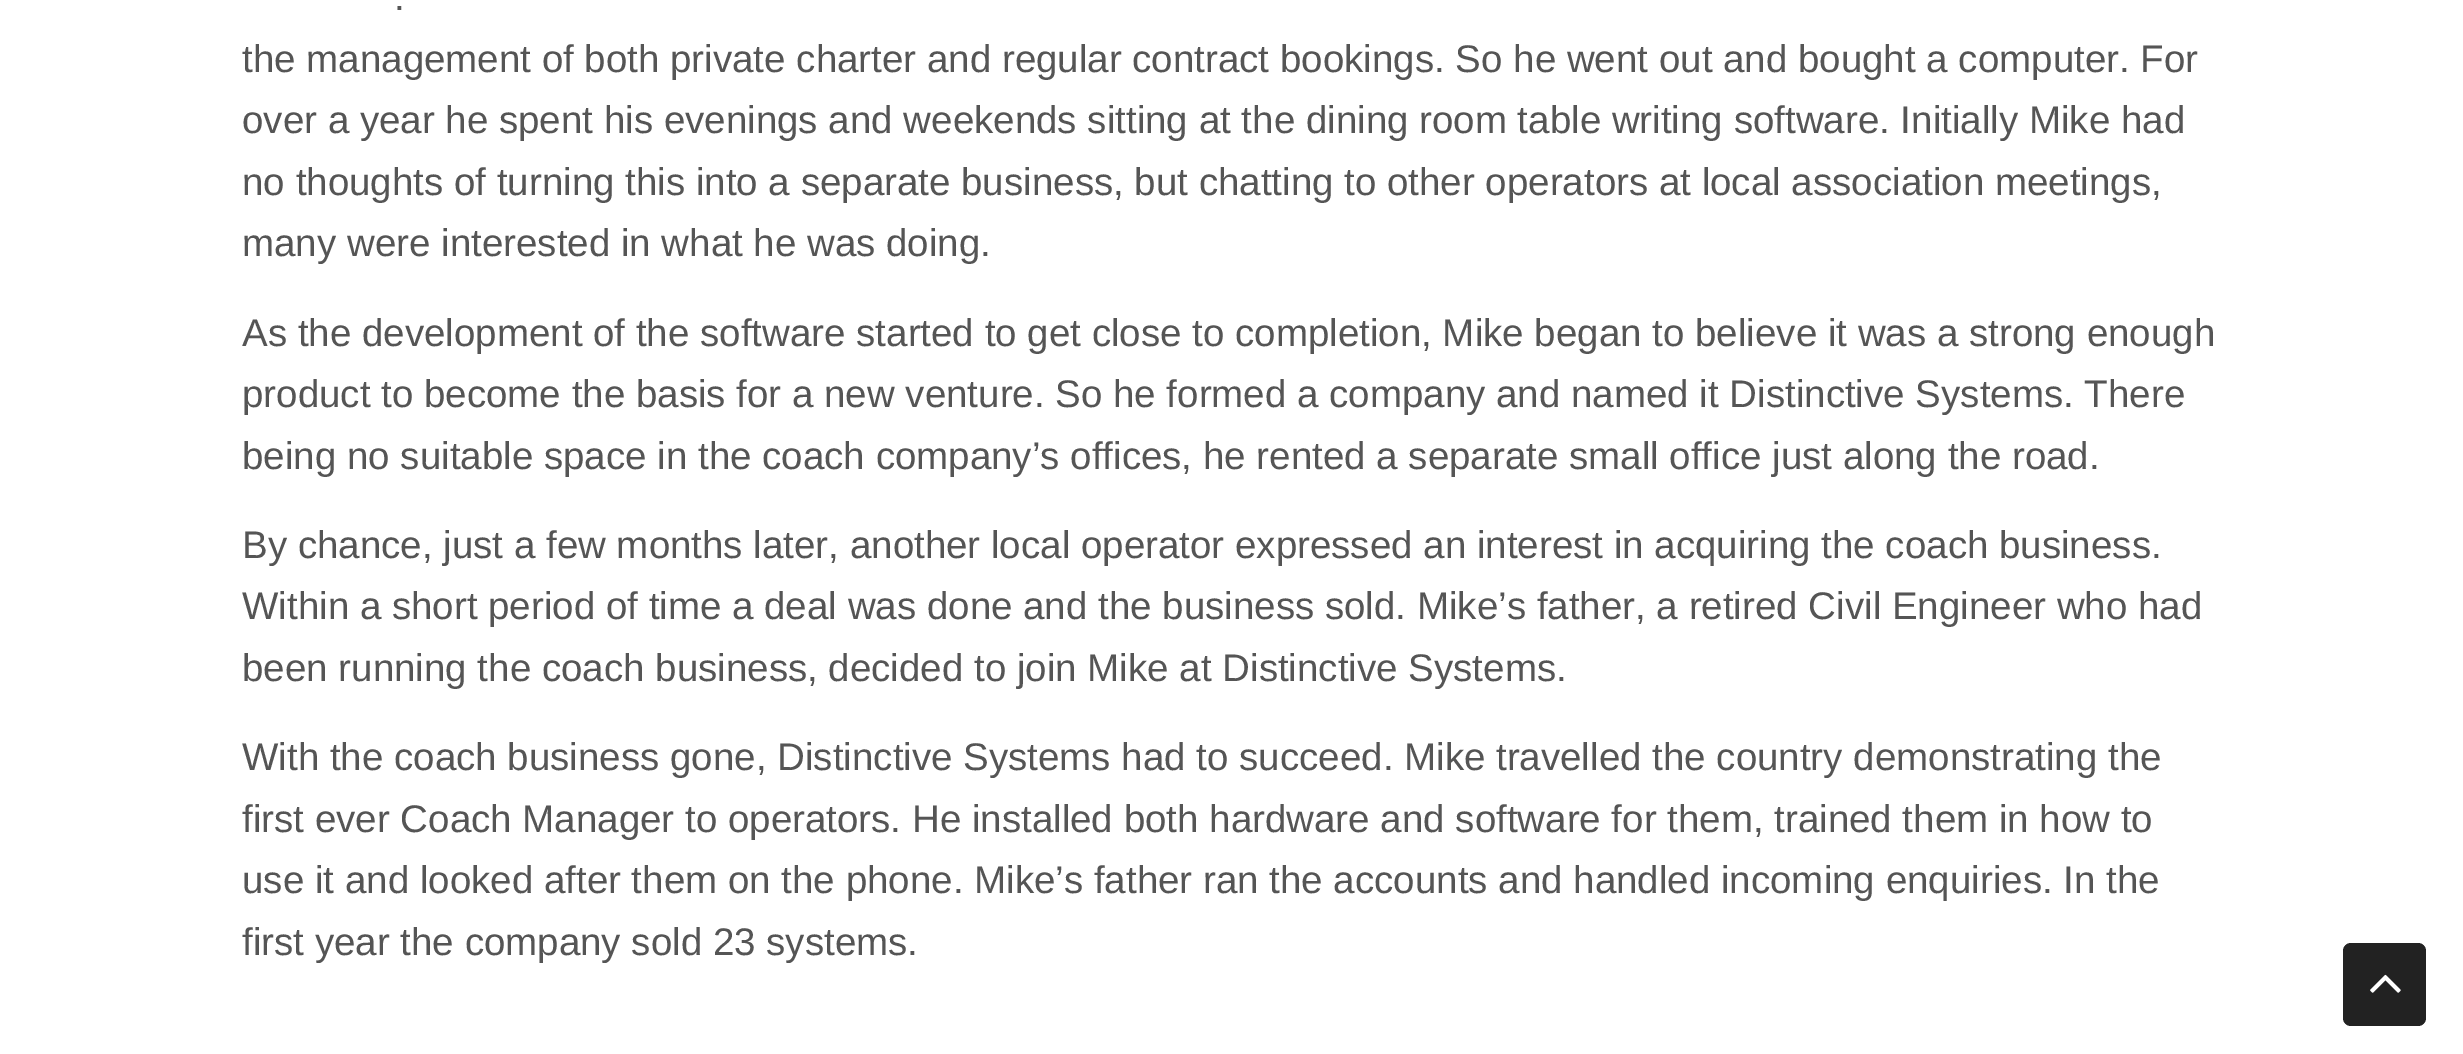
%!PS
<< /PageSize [2463 1054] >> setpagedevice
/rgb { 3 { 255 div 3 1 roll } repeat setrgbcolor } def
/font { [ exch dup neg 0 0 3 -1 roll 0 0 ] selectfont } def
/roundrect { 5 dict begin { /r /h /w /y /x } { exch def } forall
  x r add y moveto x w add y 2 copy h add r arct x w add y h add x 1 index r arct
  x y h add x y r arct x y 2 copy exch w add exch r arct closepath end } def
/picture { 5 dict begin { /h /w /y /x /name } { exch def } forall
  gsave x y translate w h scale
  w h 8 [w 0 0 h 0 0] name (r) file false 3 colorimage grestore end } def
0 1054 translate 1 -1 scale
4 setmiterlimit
255 255 255 rgb
0 0 2463 1054 rectfill
34 34 34 rgb
2343 943 83 83 8 roundrect fill
(img/1.rgb) 2370 974 31 19 picture
/LiberationSans-Regular 38.5 font
85 85 85 rgb
[
  [(.) 394 10]
  [(the management of both private charter and regular contract bookings. So he went out and bought a computer. For) 242 72]
  [(over a year he spent his evenings and weekends sitting at the dining room table writing software. Initially Mike had) 242 133]
  [(no thoughts of turning this into a separate business, but chatting to other operators at local association meetings,) 242 195]
  [(many were interested in what he was doing.) 242 256]
  [(As the development of the software started to get close to completion, Mike began to believe it was a strong enough) 242 346]
  [(product to become the basis for a new venture. So he formed a company and named it Distinctive Systems. There) 242 407]
  [(being no suitable space in the coach company’s offices, he rented a separate small office just along the road.) 242 469]
  [(By chance, just a few months later, another local operator expressed an interest in acquiring the coach business.) 242 558]
  [(Within a short period of time a deal was done and the business sold. Mike’s father, a retired Civil Engineer who had) 242 619]
  [(been running the coach business, decided to join Mike at Distinctive Systems.) 242 681]
  [(With the coach business gone, Distinctive Systems had to succeed. Mike travelled the country demonstrating the) 242 770]
  [(first ever Coach Manager to operators. He installed both hardware and software for them, trained them in how to) 242 832]
  [(use it and looked after them on the phone. Mike’s father ran the accounts and handled incoming enquiries. In the) 242 893]
  [(first year the company sold 23 systems.) 242 955]
] { aload pop moveto show } forall
showpage
